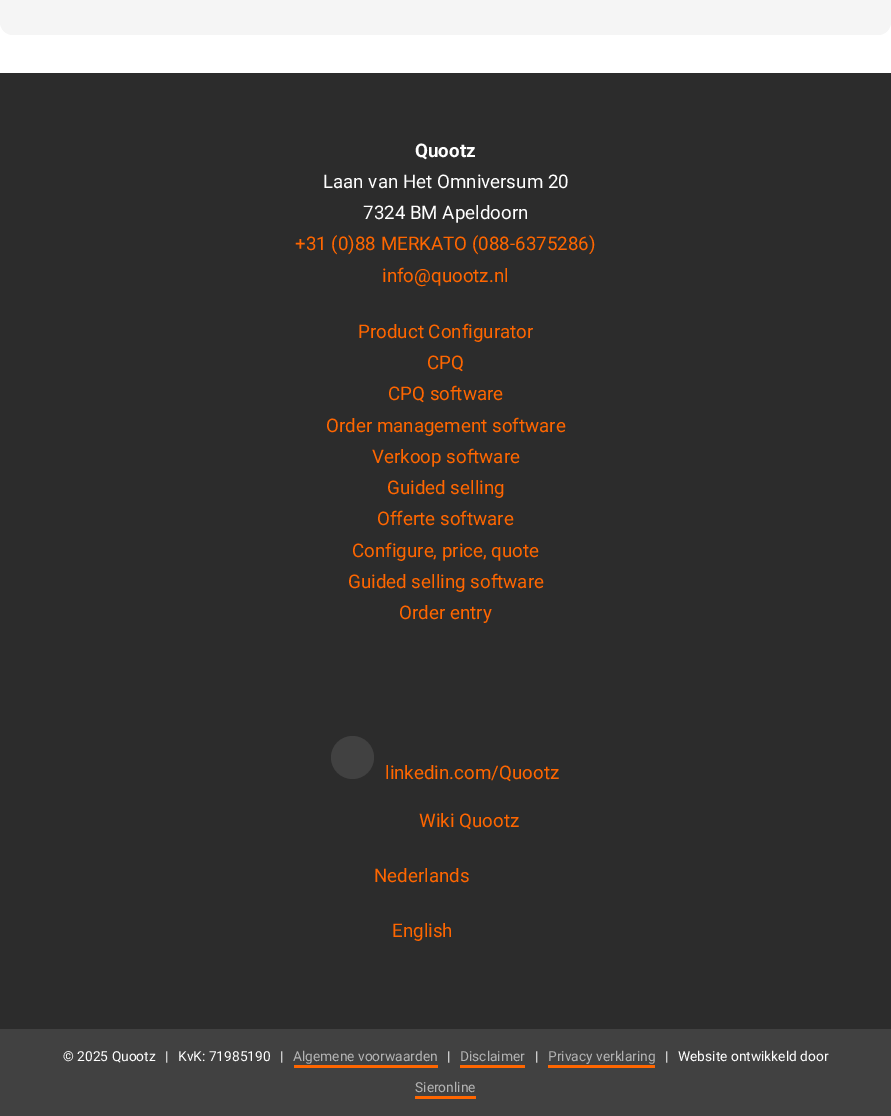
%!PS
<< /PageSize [891 1116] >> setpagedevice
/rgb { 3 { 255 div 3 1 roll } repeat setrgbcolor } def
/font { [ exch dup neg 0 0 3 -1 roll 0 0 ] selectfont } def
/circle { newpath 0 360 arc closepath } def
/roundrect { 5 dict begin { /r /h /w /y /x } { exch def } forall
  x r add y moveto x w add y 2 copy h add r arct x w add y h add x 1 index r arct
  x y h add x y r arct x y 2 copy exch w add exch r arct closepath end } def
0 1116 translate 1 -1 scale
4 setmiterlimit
255 255 255 rgb
0 0 891 1116 rectfill
245 245 245 rgb
0 -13 891 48 13 roundrect fill
44 44 44 rgb
0 73 891 956 rectfill
65 65 65 rgb
352.5 757.5 21.5 circle fill
[
  [0 1029 891 87 65 65 65]
  [294 1065 144 3 255 102 0]
  [460 1065 65 3 255 102 0]
  [548 1065 107 3 255 102 0]
  [415 1096 61 3 255 102 0]
] { aload pop rgb rectfill } forall
/Roboto-Bold 18.75 font
255 255 255 rgb
415 157 moveto (Quootz) show
/Roboto-Regular 18.75 font
323 188 moveto (Laan van Het Omniversum 20) show
363 219 moveto (7324 BM Apeldoorn) show
255 102 0 rgb
[
  [(+31 \(0\)88 MERKATO \(088-6375286\)) 295 250]
  [(info@quootz.nl) 382 282]
  [(Product Configurator) 358 338]
  [(CPQ) 427 369]
  [(CPQ software) 388 400]
  [(Order management software) 326 432]
  [(Verkoop software) 372 463]
  [(Guided selling) 387 494]
  [(Offerte software) 377 525]
  [(Configure, price, quote) 352 557]
  [(Guided selling software) 348 588]
  [(Order entry) 399 619]
  [(linkedin.com/Quootz) 385 779]
  [(Wiki Quootz) 419 827]
  [(Nederlands) 374 882]
  [(English) 392 937]
] { aload pop moveto show } forall
/Roboto-Regular 13.75 font
255 255 255 rgb
[
  [(© 2025 Quootz) 63 1061]
  [(|) 165 1061]
  [(KvK: 71985190) 178 1061]
  [(|) 280 1061]
] { aload pop moveto show } forall
179 179 179 rgb
293 1061 moveto (Algemene voorwaarden) show
255 255 255 rgb
447 1061 moveto (|) show
179 179 179 rgb
460 1061 moveto (Disclaimer) show
255 255 255 rgb
535 1061 moveto (|) show
179 179 179 rgb
548 1061 moveto (Privacy verklaring) show
255 255 255 rgb
665 1061 moveto (|) show
678 1061 moveto (Website ontwikkeld door) show
179 179 179 rgb
415 1092 moveto (Sieronline) show
showpage
